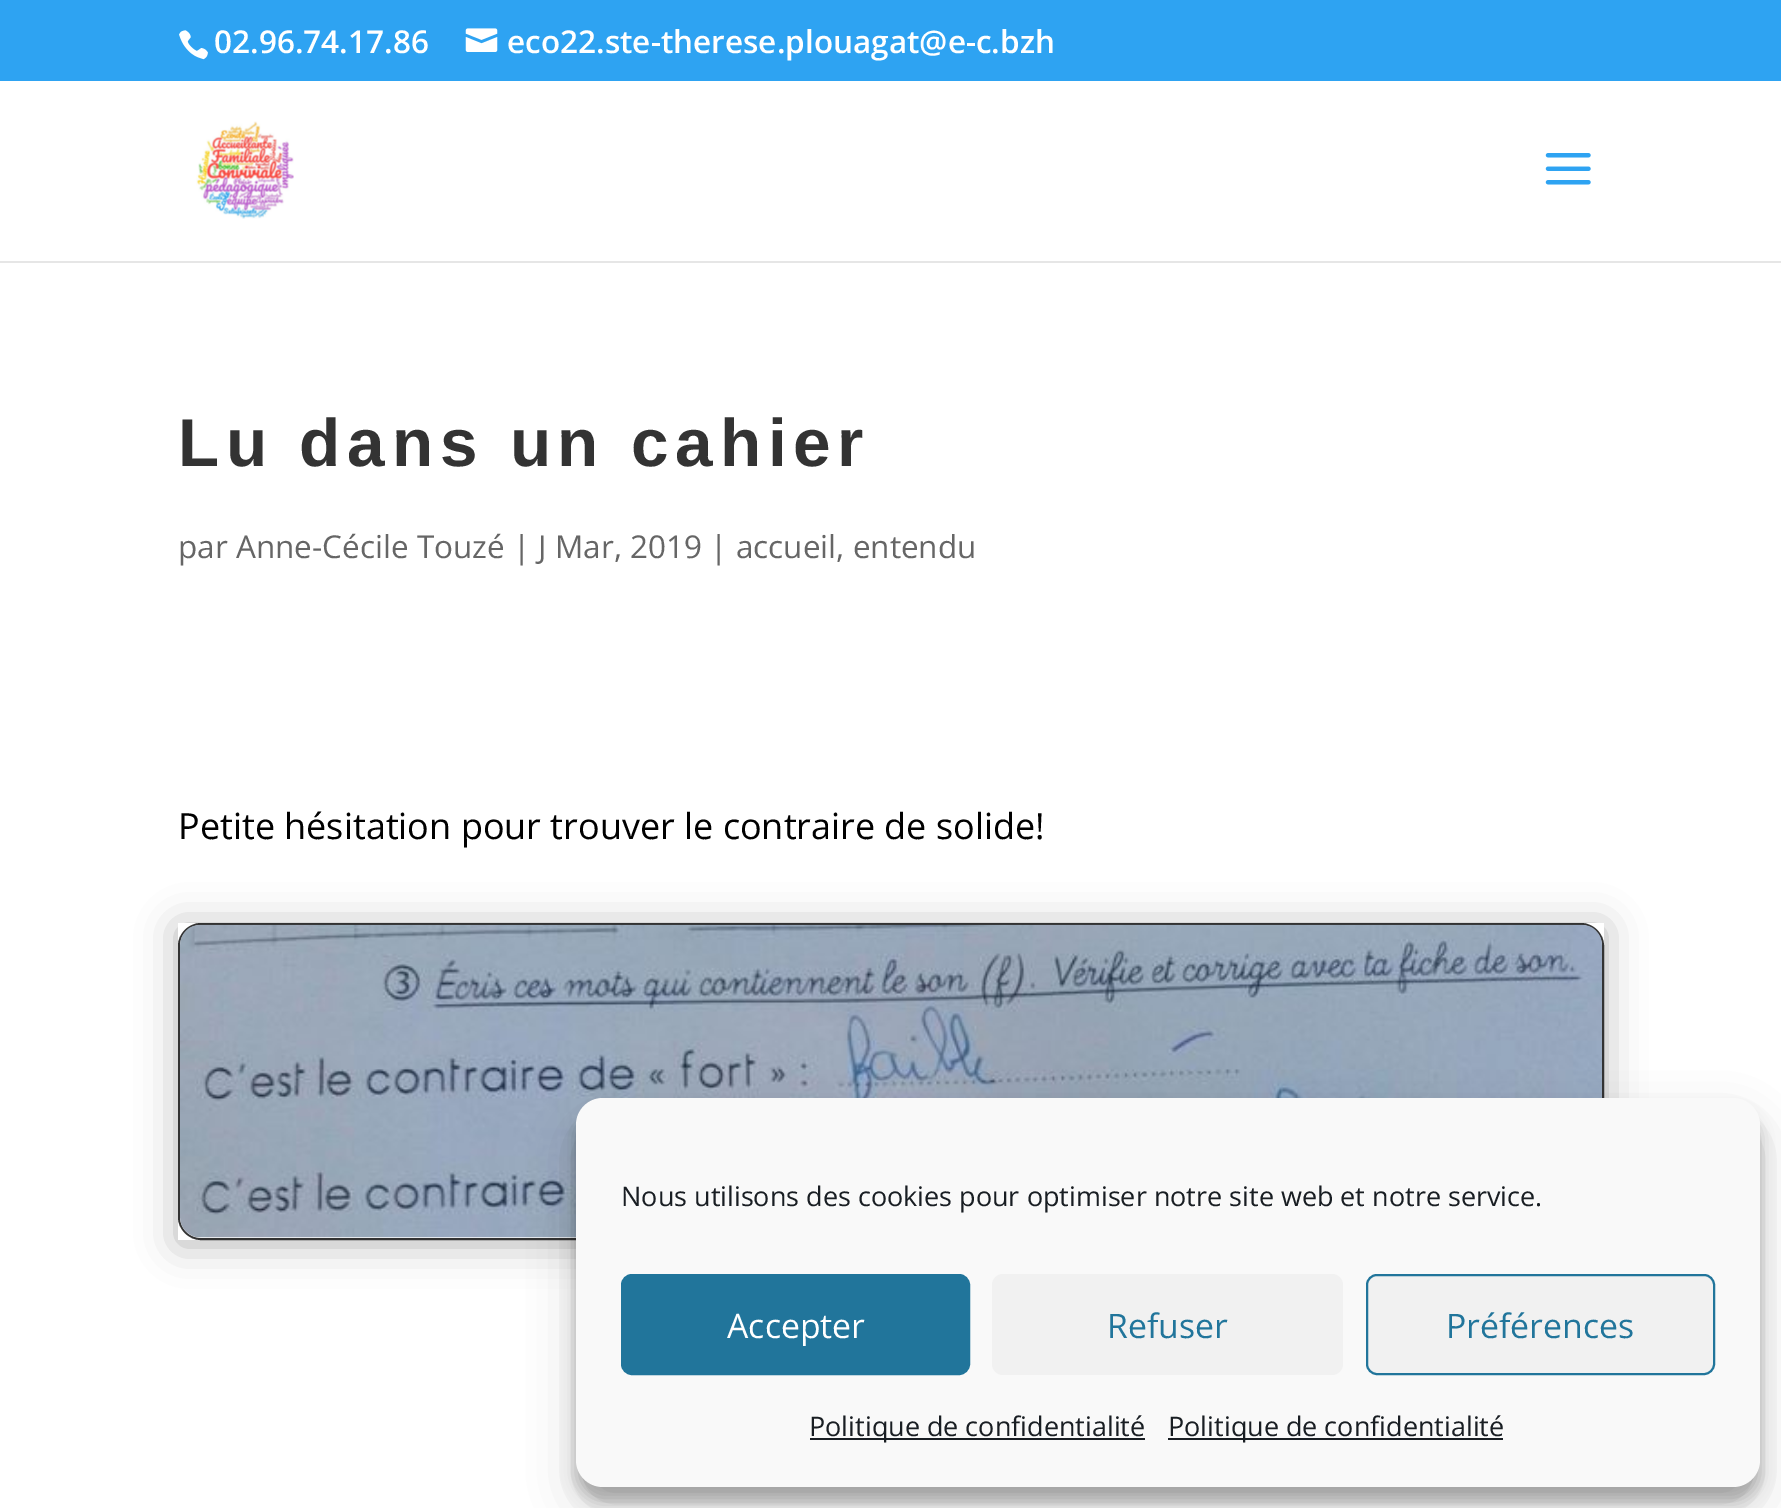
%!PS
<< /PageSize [1781 1508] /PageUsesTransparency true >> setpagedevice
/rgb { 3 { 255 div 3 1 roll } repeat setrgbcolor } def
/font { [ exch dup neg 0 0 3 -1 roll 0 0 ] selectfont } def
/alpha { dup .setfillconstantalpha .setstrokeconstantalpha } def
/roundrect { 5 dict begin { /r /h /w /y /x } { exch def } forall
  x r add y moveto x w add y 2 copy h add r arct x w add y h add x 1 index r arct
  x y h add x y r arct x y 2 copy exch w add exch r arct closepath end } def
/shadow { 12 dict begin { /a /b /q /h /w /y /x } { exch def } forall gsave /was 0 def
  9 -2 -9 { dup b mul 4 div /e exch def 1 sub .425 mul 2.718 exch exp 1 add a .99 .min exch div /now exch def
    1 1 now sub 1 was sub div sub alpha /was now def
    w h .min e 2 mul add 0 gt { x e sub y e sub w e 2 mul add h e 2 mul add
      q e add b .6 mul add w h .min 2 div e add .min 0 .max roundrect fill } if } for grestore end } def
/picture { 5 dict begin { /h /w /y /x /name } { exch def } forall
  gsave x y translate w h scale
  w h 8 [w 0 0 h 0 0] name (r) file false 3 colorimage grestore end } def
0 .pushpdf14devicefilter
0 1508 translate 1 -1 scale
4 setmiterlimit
255 255 255 rgb
0 0 1781 1508 rectfill
46 163 242 rgb
0 0 1781 81 rectfill
(img/1.rgb) 179 30 29 30 picture
(img/2.rgb) 465 28 33 24 picture
230 230 230 rgb
0 261 1781 2 rectfill
(img/3.rgb) 196 121 98 98 picture
(img/4.rgb) 1545 153 46 32 picture
gsave
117 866 moveto 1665 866 lineto 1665 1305 lineto 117 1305 lineto closepath 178 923 moveto 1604 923 lineto 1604 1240 lineto 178 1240 lineto closepath eoclip newpath
0 0 0 rgb
178 927 1426 317 0 20 0.3 shadow
grestore
51 51 51 rgb
2 setlinewidth
179 924 1424 315 22 roundrect stroke
(img/5.rgb) 180 924 1422 314 picture
0 0 0 rgb
576 1112 1184 389 27 7 0.23 shadow
576 1121 1184 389 27 22.5 0.19 shadow
249 249 249 rgb
576 1098 1184 389 27 roundrect fill
33 117 155 rgb
622 1275 347 99 10 roundrect gsave fill grestore
stroke
241 241 241 rgb
992 1274 351 101 11 roundrect fill
1367 1275 347 99 10 roundrect gsave fill grestore
33 117 155 rgb
stroke
25 30 35 rgb
810 1438 335 2 rectfill
1168 1438 335 2 rectfill
/OpenSans-SemiBold 31.5 font
255 255 255 rgb
214 53 moveto (02.96.74.17.86) show
507 53 moveto (eco22.ste-therese.plouagat@e-c.bzh) show
/LiberationSans-Bold 67.5 font
51 51 51 rgb
178 466 moveto 6.75 0 (Lu dans un cahier) ashow
/OpenSans-Regular 31.5 font
102 102 102 rgb
178 558 moveto (par Anne-Cécile Touzé | J Mar, 2019 | accueil, entendu) show
/OpenSans-Regular 36 font
0 0 0 rgb
178 839 moveto (Petite hésitation pour trouver le contraire de solide!) show
/OpenSans-Regular 27 font
25 30 35 rgb
621 1206 moveto (Nous utilisons des cookies pour optimiser notre site web et notre service.) show
/OpenSans-Regular 33.75 font
255 255 255 rgb
727 1338 moveto (Accepter) show
33 117 155 rgb
1107 1338 moveto (Refuser) show
1446 1338 moveto (Préférences) show
/OpenSans-Regular 27 font
25 30 35 rgb
809 1436 moveto (Politique de confidentialité) show
1168 1436 moveto (Politique de confidentialité) show
.poppdf14devicefilter showpage
